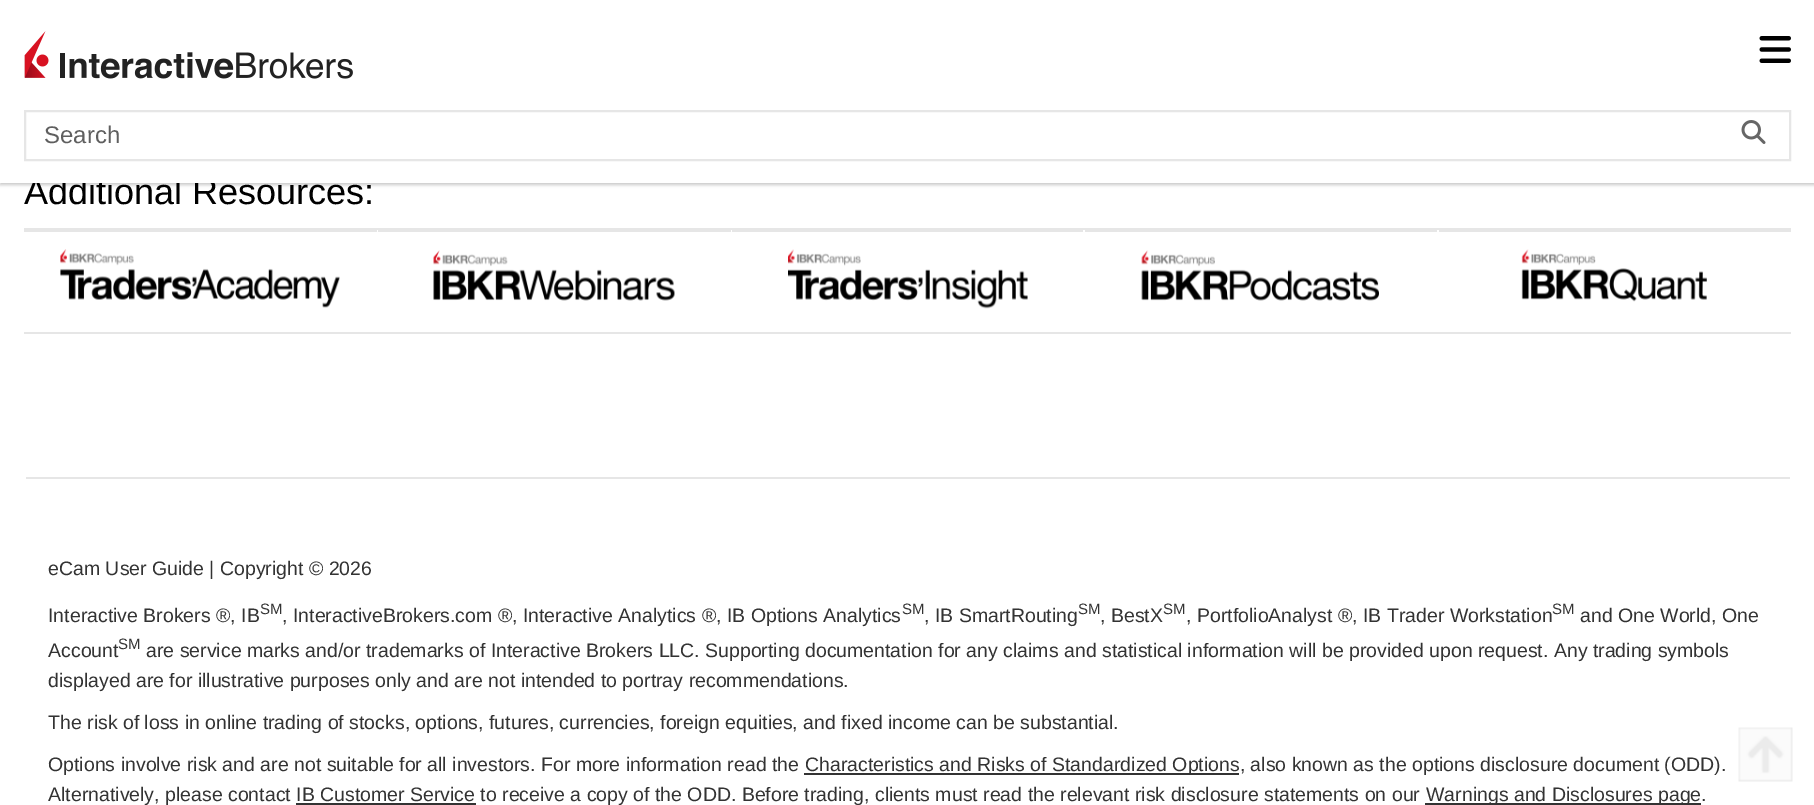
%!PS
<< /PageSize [1814 805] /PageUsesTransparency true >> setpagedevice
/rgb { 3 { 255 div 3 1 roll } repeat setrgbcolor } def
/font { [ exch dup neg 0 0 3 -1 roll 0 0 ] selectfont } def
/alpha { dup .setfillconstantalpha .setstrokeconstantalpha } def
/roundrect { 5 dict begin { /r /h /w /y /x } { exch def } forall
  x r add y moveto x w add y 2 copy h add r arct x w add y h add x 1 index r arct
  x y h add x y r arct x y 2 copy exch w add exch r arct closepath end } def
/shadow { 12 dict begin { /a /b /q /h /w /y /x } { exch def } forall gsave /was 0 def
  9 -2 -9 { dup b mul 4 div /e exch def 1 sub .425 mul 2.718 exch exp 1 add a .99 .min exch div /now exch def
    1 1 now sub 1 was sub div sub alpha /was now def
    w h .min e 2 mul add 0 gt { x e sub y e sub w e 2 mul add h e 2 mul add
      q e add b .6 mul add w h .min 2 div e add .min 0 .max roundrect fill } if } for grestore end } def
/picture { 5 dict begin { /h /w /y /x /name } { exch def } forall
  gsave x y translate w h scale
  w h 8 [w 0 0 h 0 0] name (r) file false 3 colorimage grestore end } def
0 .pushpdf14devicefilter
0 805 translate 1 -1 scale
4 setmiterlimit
255 255 255 rgb
0 0 1814 805 rectfill
0 0 0 rgb
0 2 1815 183 0 1.5 0.2 shadow
[
  [24 228 1767 2 230 230 230]
  [24 332 1767 2 230 230 230]
  [24 230 1767 2 230 230 230]
  [377 230 1 2 255 255 255]
] { aload pop rgb rectfill } forall
(img/4.rgb) 60 249 280 59 picture
731 230 1 2 rectfill
(img/5.rgb) 433 250 242 51 picture
1083 230 2 2 rectfill
(img/6.rgb) 788 249 240 60 picture
1437 230 2 2 rectfill
(img/7.rgb) 1141 250 238 51 picture
(img/8.rgb) 1521 249 186 53 picture
[
  [26 477 1764 2 230 230 230]
  [804 773 435 2 51 51 51]
  [1425 803 276 2 51 51 51]
  [296 803 180 2 51 51 51]
] { aload pop rgb rectfill } forall
(img/9.rgb) 1738 727 55 55 picture
/LiberationSans-Regular 36 font
0 0 0 rgb
24 204 moveto (Additional Resources:) show
255 255 255 rgb
0 0 1814 183 rectfill
(img/1.rgb) 1759 36 32 27 picture
(img/2.rgb) 24 31 329 48 picture
230 230 230 rgb
2 setlinewidth
25 111 1765 49 rectstroke
(img/3.rgb) 1741 120 25 24 picture
/LiberationSans-Regular 24 font
95 95 95 rgb
44 143 moveto (Search) show
/LiberationSans-Regular 19.5 font
51 51 51 rgb
48 575 moveto (eCam User Guide | Copyright © 2026) show
48 622 moveto (Interactive Brokers ®, IB) show
/LiberationSans-Regular 15 font
260 614 moveto (SM) show
/LiberationSans-Regular 19.5 font
282 622 moveto (, InteractiveBrokers.com ®, Interactive Analytics ®, IB Options Analytics) show
/LiberationSans-Regular 15 font
902 614 moveto (SM) show
/LiberationSans-Regular 19.5 font
924 622 moveto (, IB SmartRouting) show
/LiberationSans-Regular 15 font
1078 614 moveto (SM) show
/LiberationSans-Regular 19.5 font
1100 622 moveto (, BestX) show
/LiberationSans-Regular 15 font
1163 614 moveto (SM) show
/LiberationSans-Regular 19.5 font
1186 622 moveto (, PortfolioAnalyst ®, IB Trader Workstation) show
/LiberationSans-Regular 15 font
1552 614 moveto (SM) show
/LiberationSans-Regular 19.5 font
1580 622 moveto (and One World, One) show
48 657 moveto (Account) show
/LiberationSans-Regular 15 font
118 649 moveto (SM) show
/LiberationSans-Regular 19.5 font
[
  [(are service marks and/or trademarks of Interactive Brokers LLC. Supporting documentation for any claims and statistical information will be provided upon request. Any trading symbols) 146 657]
  [(displayed are for illustrative purposes only and are not intended to portray recommendations.) 48 687]
  [(The risk of loss in online trading of stocks, options, futures, currencies, foreign equities, and fixed income can be substantial.) 48 729]
  [(Options involve risk and are not suitable for all investors. For more information read the) 48 771]
  [(Characteristics and Risks of Standardized Options, also known as the options disclosure document \(ODD\).) 805 771]
  [(Alternatively, please contact IB Customer Service to receive a copy of the ODD. Before trading, clients must read the relevant risk disclosure statements on our) 48 801]
  [(Warnings and Disclosures page) 1426 801]
  [(.) 1701 801]
] { aload pop moveto show } forall
.poppdf14devicefilter showpage
